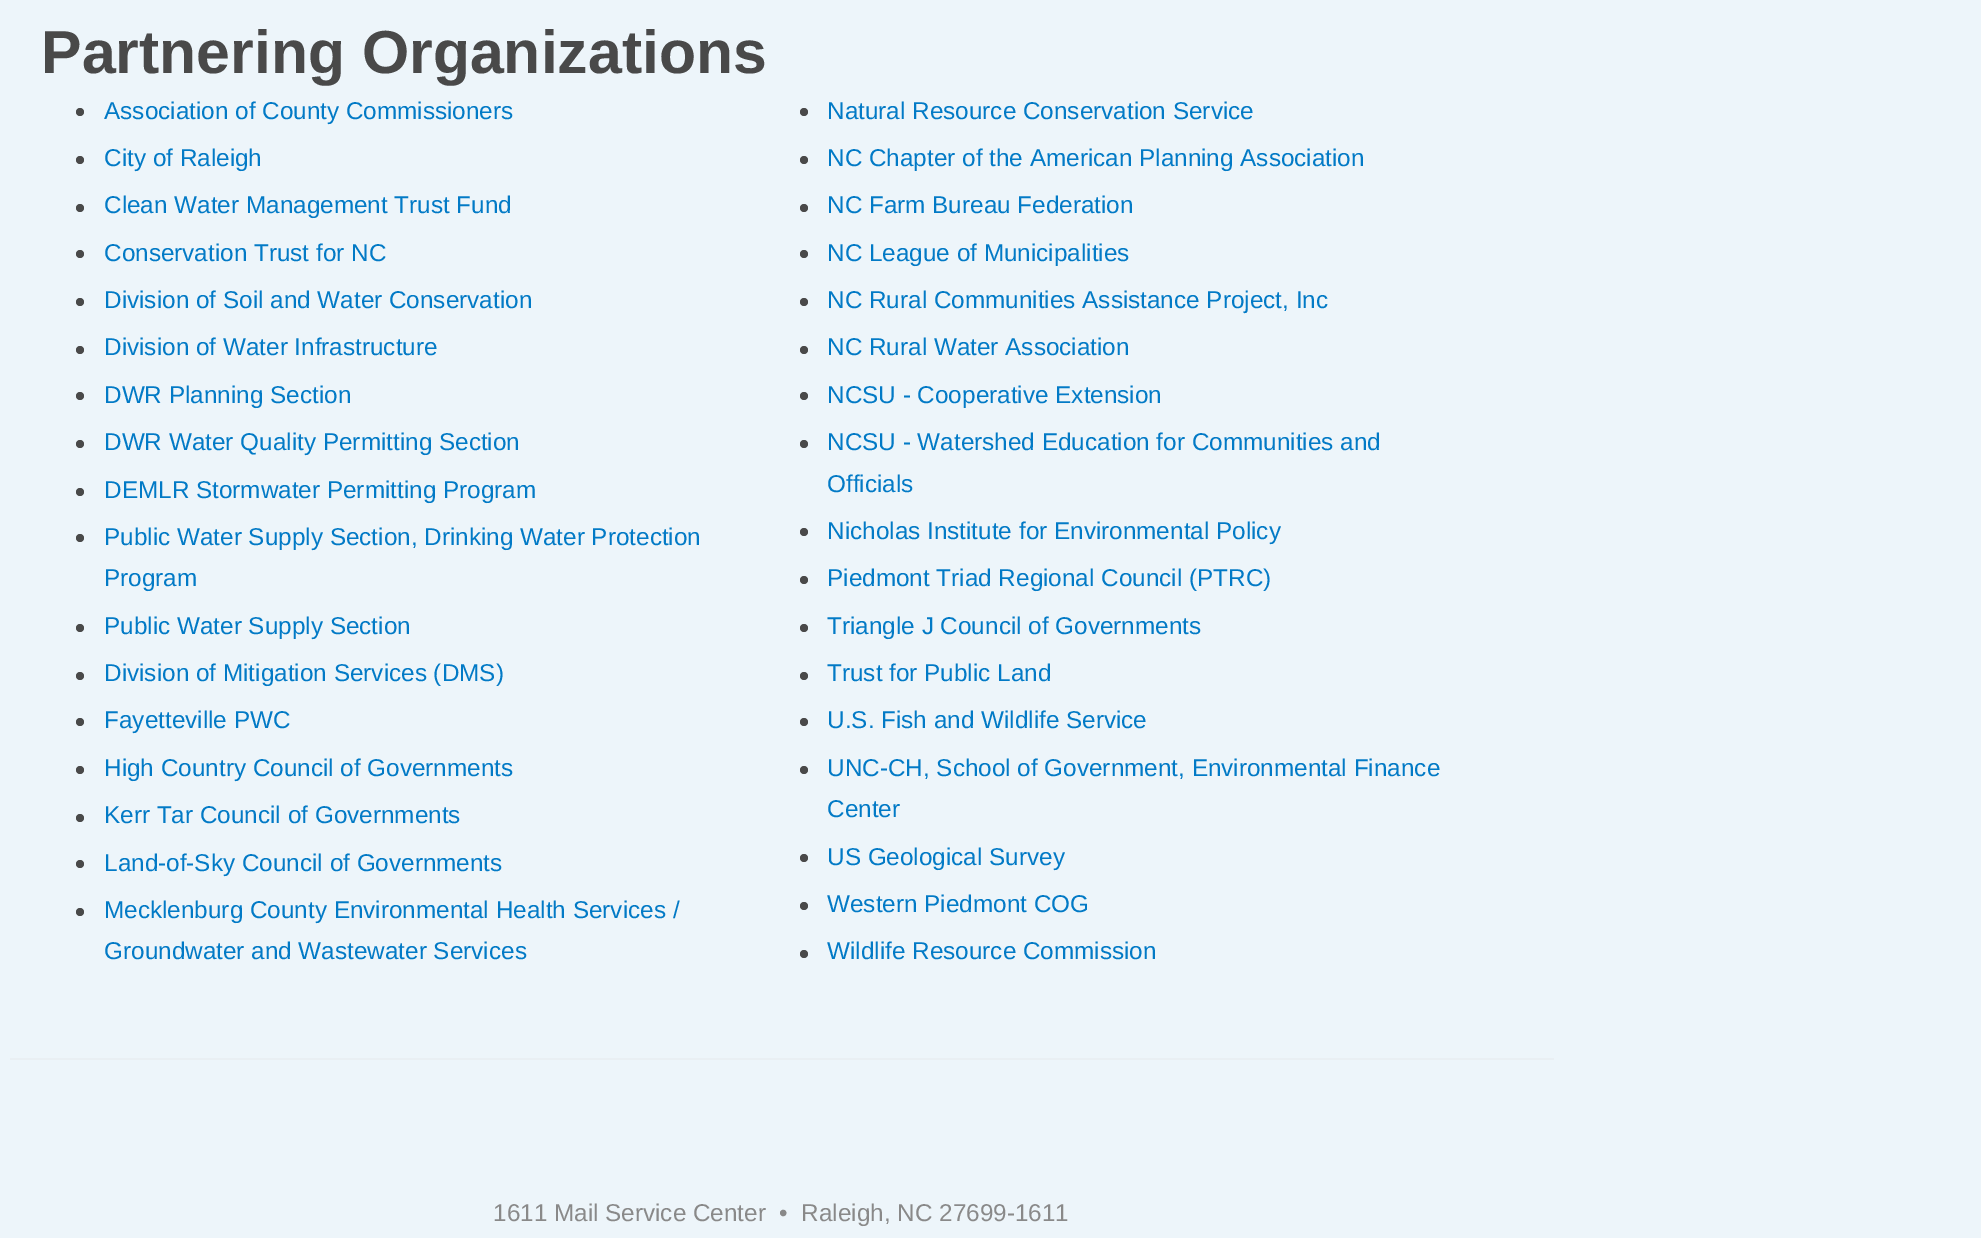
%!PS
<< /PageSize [1981 1238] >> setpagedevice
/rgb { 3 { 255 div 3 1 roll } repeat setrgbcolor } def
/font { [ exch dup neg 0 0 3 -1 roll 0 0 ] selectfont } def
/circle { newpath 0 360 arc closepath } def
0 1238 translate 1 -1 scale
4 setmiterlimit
237 245 250 rgb
0 0 1981 1238 rectfill
233 239 243 rgb
10 1058 1544 2 rectfill
73 73 73 rgb
80 112 4 circle fill
80 160 4 circle fill
80 208 4 circle fill
80 254 4 circle fill
80 302 4 circle fill
80 350 4 circle fill
80 396 4 circle fill
80 444 4 circle fill
80 492 4 circle fill
80 538 4 circle fill
80 628 4 circle fill
80 676 4 circle fill
80 722 4 circle fill
80 770 4 circle fill
80 818 4 circle fill
80 864 4 circle fill
80 912 4 circle fill
804 112 4 circle fill
804 160 4 circle fill
804 208 4 circle fill
804 254 4 circle fill
804 302 4 circle fill
804 350 4 circle fill
804 396 4 circle fill
804 444 4 circle fill
804 532 4 circle fill
804 580 4 circle fill
804 628 4 circle fill
804 676 4 circle fill
804 722 4 circle fill
804 770 4 circle fill
804 858 4 circle fill
804 906 4 circle fill
804 954 4 circle fill
/LiberationSans-Bold 60.75 font
41 73 moveto (Partnering Organizations) show
/LiberationSans-Regular 24.3 font
2 122 198 rgb
[
  [(Association of County Commissioners) 104 119]
  [(City of Raleigh) 104 166]
  [(Clean Water Management Trust Fund) 104 213]
  [(Conservation Trust for NC) 104 261]
  [(Division of Soil and Water Conservation) 104 308]
  [(Division of Water Infrastructure) 104 355]
  [(DWR Planning Section) 104 403]
  [(DWR Water Quality Permitting Section) 104 450]
  [(DEMLR Stormwater Permitting Program) 104 498]
  [(Public Water Supply Section, Drinking Water Protection) 104 545]
  [(Program) 104 586]
  [(Public Water Supply Section) 104 634]
  [(Division of Mitigation Services \(DMS\)) 104 681]
  [(Fayetteville PWC) 104 728]
  [(High Country Council of Governments) 104 776]
  [(Kerr Tar Council of Governments) 104 823]
  [(Land-of-Sky Council of Governments) 104 871]
  [(Mecklenburg County Environmental Health Services /) 104 918]
  [(Groundwater and Wastewater Services) 104 959]
  [(Natural Resource Conservation Service) 827 119]
  [(NC Chapter of the American Planning Association) 827 166]
  [(NC Farm Bureau Federation) 827 213]
  [(NC League of Municipalities) 827 261]
  [(NC Rural Communities Assistance Project, Inc) 827 308]
  [(NC Rural Water Association) 827 355]
  [(NCSU - Cooperative Extension) 827 403]
  [(NCSU - Watershed Education for Communities and) 827 450]
  [(Officials) 827 492]
  [(Nicholas Institute for Environmental Policy) 827 539]
  [(Piedmont Triad Regional Council \(PTRC\)) 827 586]
  [(Triangle J Council of Governments) 827 634]
  [(Trust for Public Land) 827 681]
  [(U.S. Fish and Wildlife Service) 827 728]
  [(UNC-CH, School of Government, Environmental Finance) 827 776]
  [(Center) 827 817]
  [(US Geological Survey) 827 865]
  [(Western Piedmont COG) 827 912]
  [(Wildlife Resource Commission) 827 959]
] { aload pop moveto show } forall
137 137 137 rgb
493 1221 moveto (1611 Mail Service Center  •  Raleigh, NC 27699-1611) show
showpage
